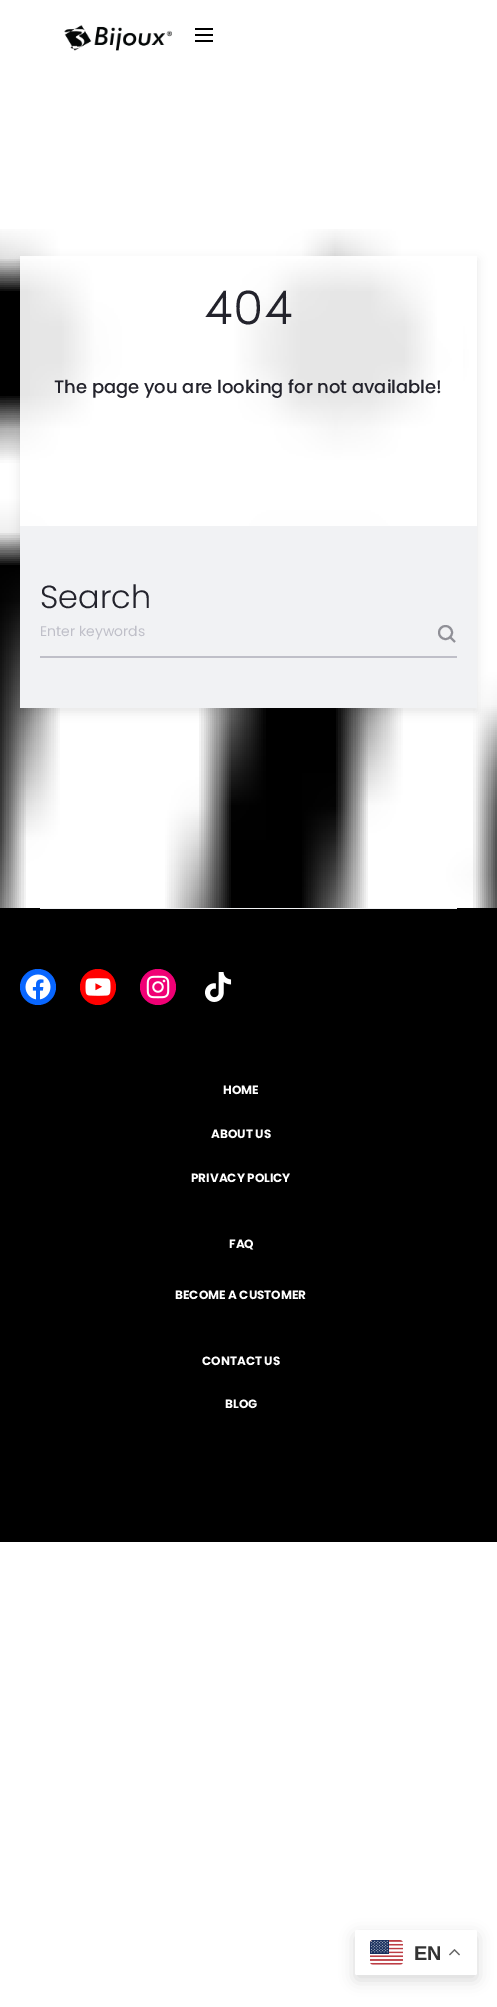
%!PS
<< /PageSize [497 2007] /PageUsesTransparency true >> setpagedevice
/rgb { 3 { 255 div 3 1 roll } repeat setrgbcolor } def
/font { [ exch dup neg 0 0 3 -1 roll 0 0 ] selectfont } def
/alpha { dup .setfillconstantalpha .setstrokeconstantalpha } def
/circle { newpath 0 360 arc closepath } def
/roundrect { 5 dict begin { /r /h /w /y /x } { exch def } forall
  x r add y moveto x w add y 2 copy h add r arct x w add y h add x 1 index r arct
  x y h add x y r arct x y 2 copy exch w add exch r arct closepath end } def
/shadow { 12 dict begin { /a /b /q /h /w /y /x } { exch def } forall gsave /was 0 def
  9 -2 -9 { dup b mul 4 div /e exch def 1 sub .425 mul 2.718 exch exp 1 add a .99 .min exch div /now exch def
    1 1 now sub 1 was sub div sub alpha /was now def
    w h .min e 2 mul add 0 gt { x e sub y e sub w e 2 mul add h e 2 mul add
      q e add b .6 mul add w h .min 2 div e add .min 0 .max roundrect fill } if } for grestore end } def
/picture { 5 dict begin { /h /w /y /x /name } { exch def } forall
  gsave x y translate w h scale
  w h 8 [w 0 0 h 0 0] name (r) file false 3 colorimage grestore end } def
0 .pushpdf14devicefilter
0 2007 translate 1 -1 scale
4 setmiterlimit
255 255 255 rgb
0 0 497 2007 rectfill
(img/1.rgb) 0 229 497 679 picture
(img/2.rgb) 64 25 108 26 picture
[
  [195 34 18 2 0 0 0]
  [195 28 18 2 0 0 0]
  [195 40 18 2 0 0 0]
] { aload pop rgb rectfill } forall
gsave
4 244 moveto 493 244 lineto 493 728 lineto 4 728 lineto closepath 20 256 moveto 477 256 lineto 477 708 lineto 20 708 lineto closepath eoclip newpath
3 3 3 rgb
20 260 457 452 0 5 0.1 shadow
grestore
0.9 alpha
[
  [20 256 443 270 255 255 255]
] { aload pop rgb rectfill } forall
1 alpha
[
  [20 526 457 182 241 242 244]
  [40 656 417 2 191 191 200]
] { aload pop rgb rectfill } forall
144 144 151 rgb
2 setlinewidth
445.5 632.5 6.5 circle stroke
450 637 moveto 455 642 lineto stroke
0 0 0 rgb
0 908 497 634 rectfill
241 242 244 rgb
40 908 417 1 rectfill
8 102 255 rgb
38 987 18 circle fill
(img/3.rgb) 25 974 26 26 picture
255 0 0 rgb
98 987 18 circle fill
(img/4.rgb) 85 978 26 18 picture
240 0 117 rgb
158 987 18 circle fill
(img/5.rgb) 146 975 24 24 picture
(img/6.rgb) 205 972 27 30 picture
0 0 0 rgb
355 1935 122 45 2 7.5 0.15 shadow
255 255 255 rgb
355 1930 122 45 2 roundrect fill
(img/7.rgb) 370 1940 33 25 picture
(img/8.rgb) 449 1949 11 7 picture
/Sofia-Regular 50 font
35 35 44 rgb
204 324 moveto (404) show
/Poppins-Medium 18 font
54 393 moveto (The page you are looking for not available!) show
/Poppins-Light 32 font
40 608 moveto (Search) show
/Poppins-Regular 14 font
191 191 200 rgb
40 636 moveto (Enter keywords) show
/Poppins-Bold 12 font
255 255 255 rgb
[
  [(HOME) 223 1094]
  [(ABOUT US) 211 1138]
  [(PRIVACY POLICY) 191 1182]
  [(FAQ) 229 1248]
  [(BECOME A CUSTOMER) 175 1299]
  [(CONTACT US) 202 1365]
  [(BLOG) 225 1408]
] { aload pop moveto show } forall
/LiberationSans-Bold 20 font
51 51 51 rgb
414 1960 moveto (EN) show
.poppdf14devicefilter showpage
